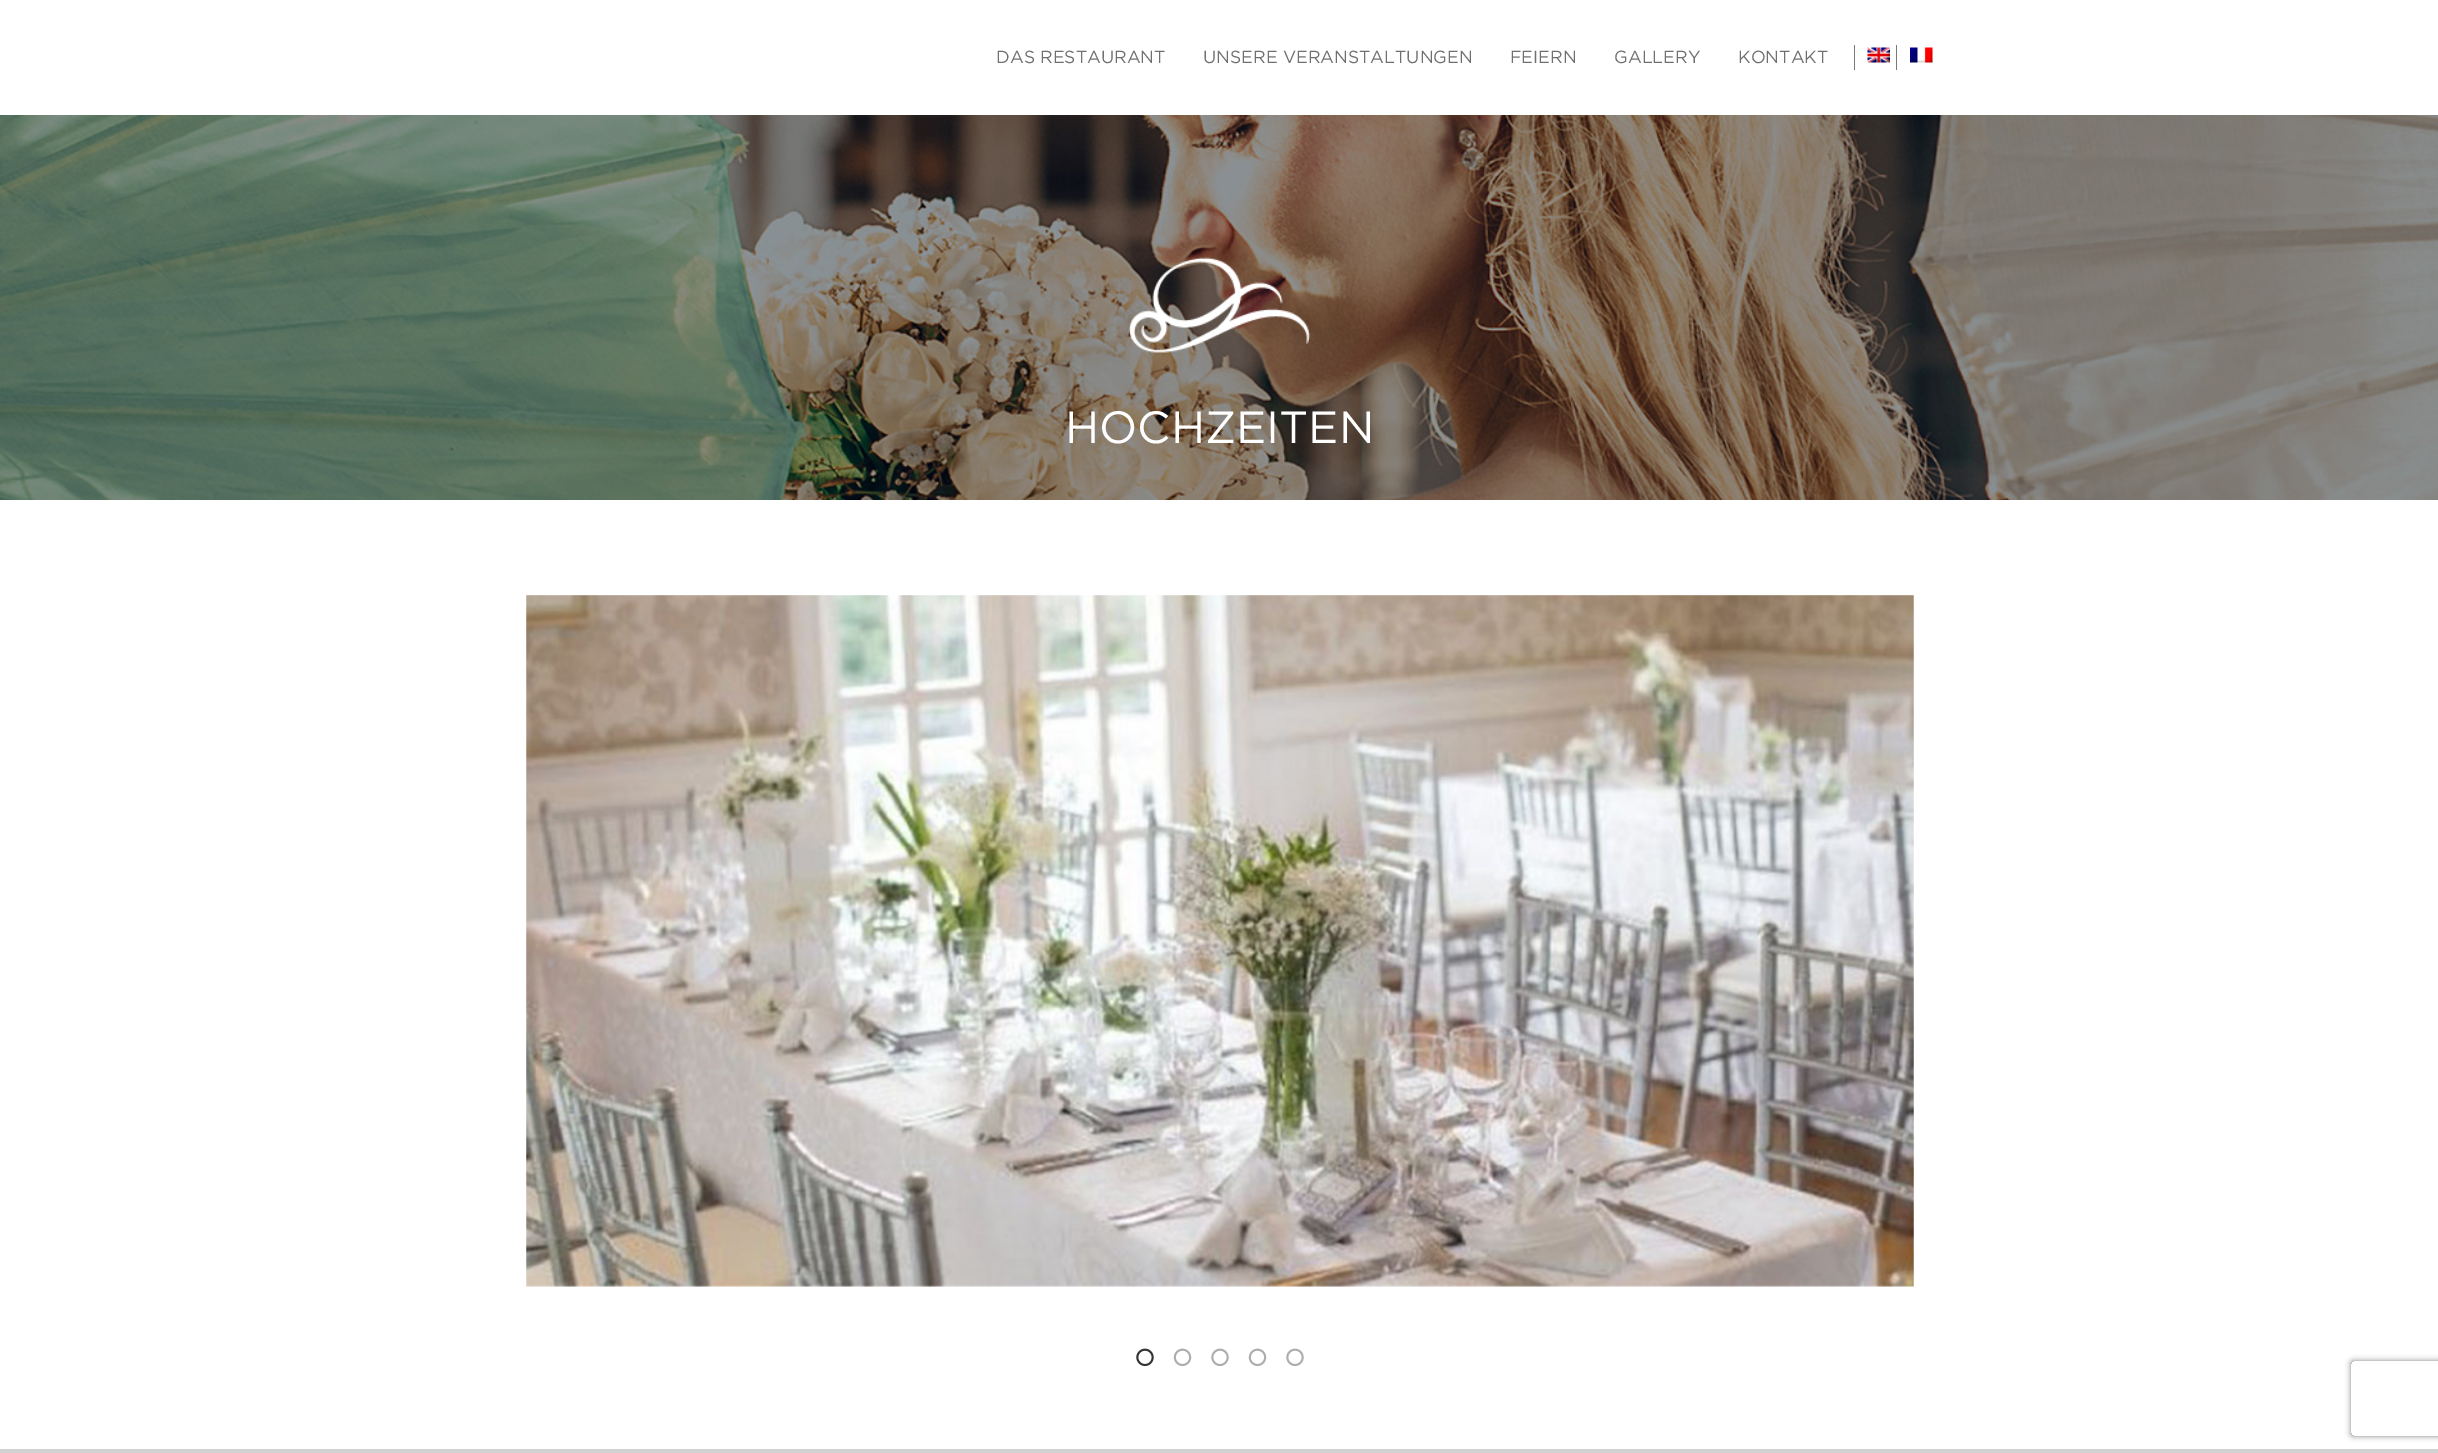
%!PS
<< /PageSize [2438 1453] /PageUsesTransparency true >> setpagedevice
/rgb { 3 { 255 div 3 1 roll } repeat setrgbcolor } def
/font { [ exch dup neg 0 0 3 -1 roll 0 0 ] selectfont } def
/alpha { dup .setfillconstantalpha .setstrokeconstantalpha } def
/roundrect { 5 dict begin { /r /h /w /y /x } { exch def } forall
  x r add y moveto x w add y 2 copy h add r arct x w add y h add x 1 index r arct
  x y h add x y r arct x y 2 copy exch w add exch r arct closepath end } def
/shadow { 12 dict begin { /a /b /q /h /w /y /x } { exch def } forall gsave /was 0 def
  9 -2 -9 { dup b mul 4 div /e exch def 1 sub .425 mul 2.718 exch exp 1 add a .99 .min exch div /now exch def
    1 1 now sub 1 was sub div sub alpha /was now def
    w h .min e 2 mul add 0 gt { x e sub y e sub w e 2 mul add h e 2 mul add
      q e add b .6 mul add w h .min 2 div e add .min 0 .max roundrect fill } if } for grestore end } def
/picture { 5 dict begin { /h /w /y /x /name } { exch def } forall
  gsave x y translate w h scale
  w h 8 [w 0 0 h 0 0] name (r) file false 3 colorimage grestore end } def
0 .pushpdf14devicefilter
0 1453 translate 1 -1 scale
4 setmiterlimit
255 255 255 rgb
0 0 2438 1453 rectfill
121 121 121 rgb
1854 45 1 25 rectfill
(img/1.rgb) 1867 47 23 16 picture
1896 45 1 25 rectfill
(img/2.rgb) 1910 47 23 16 picture
(img/3.rgb) 0 115 2438 385 picture
(img/4.rgb) 1128 257 183 96 picture
(img/5.rgb) 526 595 1388 692 picture
(img/6.rgb) 1136 1348 18 19 picture
(img/7.rgb) 1173 1348 19 19 picture
(img/8.rgb) 1211 1348 18 18 picture
(img/7.rgb) 1248 1348 19 19 picture
(img/8.rgb) 1286 1348 18 18 picture
210 210 210 rgb
0 1449 2438 4 rectfill
gsave
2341 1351 moveto 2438 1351 lineto 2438 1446 lineto 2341 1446 lineto closepath 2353.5 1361 moveto 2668.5 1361 lineto 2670 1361 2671 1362 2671 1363.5 curveto 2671 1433.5 lineto 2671 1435 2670 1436 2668.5 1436 curveto 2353.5 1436 lineto 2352 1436 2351 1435 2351 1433.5 curveto 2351 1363.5 lineto 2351 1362 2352 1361 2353.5 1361 curveto closepath eoclip newpath
128 128 128 rgb
2351 1361 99 75 2.5 3 1 shadow
grestore
/Gotham-Regular 17.5 font
113 111 110 rgb
[
  [(DAS RESTAURANT) 996 63]
  [(UNSERE VERANSTALTUNGEN) 1203 63]
  [(FEIERN) 1510 63]
  [(GALLERY) 1614 63]
  [(KONTAKT) 1738 63]
] { aload pop moveto show } forall
/Gotham-Regular 45 font
255 255 255 rgb
1065 443 moveto (HOCHZEITEN) show
.poppdf14devicefilter showpage
